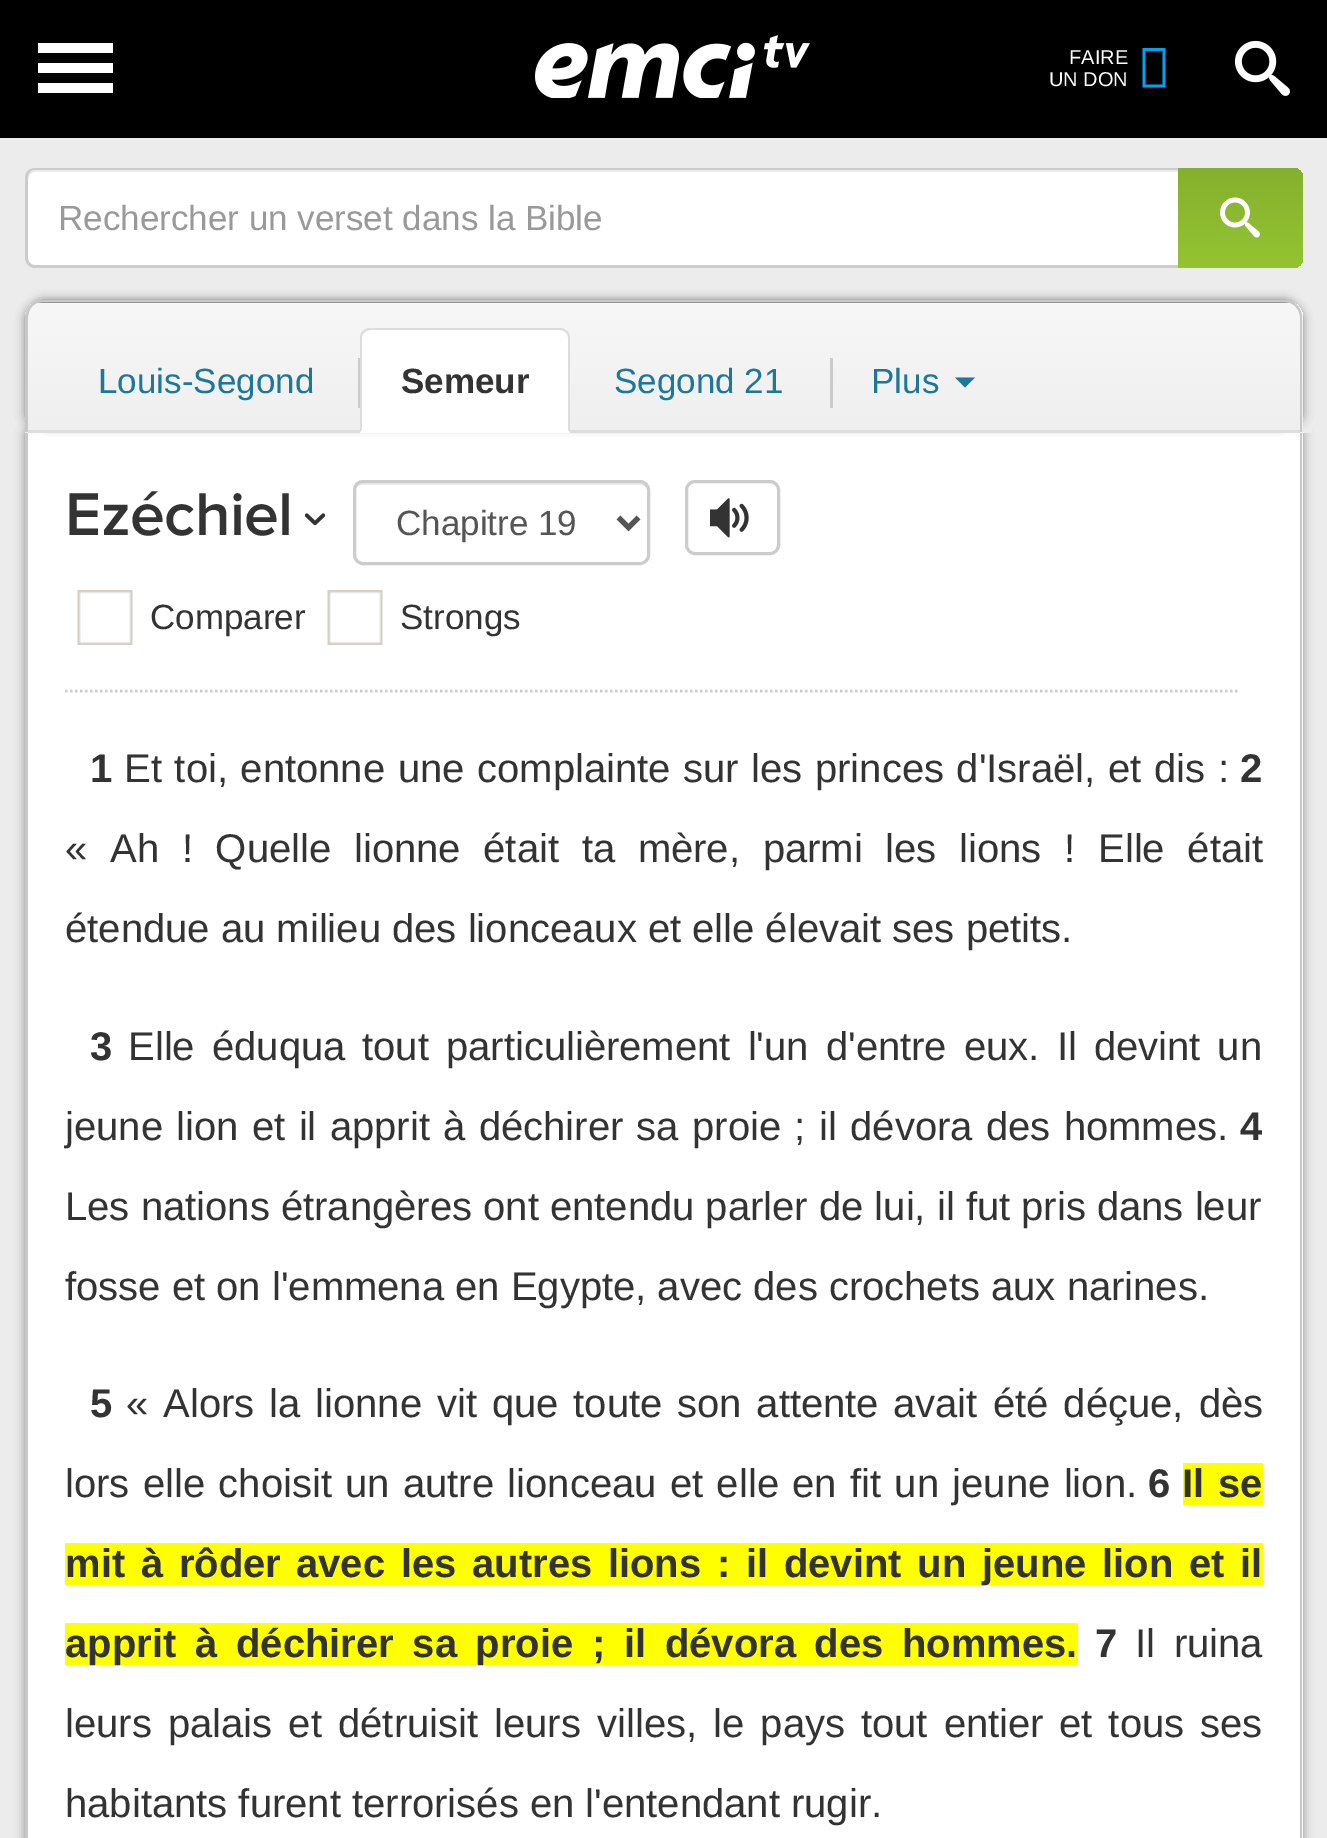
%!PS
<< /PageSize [1327 1838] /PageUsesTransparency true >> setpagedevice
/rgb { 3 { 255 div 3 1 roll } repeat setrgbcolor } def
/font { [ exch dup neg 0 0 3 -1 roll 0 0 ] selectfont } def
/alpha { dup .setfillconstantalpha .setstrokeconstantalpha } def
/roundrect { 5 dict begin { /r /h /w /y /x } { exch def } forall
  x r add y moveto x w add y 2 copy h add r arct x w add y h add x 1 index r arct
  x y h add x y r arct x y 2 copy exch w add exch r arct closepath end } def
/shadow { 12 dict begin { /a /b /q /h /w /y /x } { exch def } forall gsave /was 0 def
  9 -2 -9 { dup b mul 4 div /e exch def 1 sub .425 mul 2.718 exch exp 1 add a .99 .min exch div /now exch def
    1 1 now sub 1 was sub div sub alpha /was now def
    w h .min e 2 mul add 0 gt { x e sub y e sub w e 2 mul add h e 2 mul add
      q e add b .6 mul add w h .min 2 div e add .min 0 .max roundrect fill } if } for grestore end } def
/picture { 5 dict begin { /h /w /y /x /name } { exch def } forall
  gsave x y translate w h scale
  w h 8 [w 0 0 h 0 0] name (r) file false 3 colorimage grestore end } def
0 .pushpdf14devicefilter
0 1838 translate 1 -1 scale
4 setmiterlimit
237 236 236 rgb
0 0 1327 1838 rectfill
[
  [0 0 1327 138 0 0 0]
  [38 43 75 10 255 255 255]
  [38 63 75 10 255 255 255]
  [38 83 75 10 255 255 255]
] { aload pop rgb rectfill } forall
(img/1.rgb) 535 35 275 63 picture
0 162 240 rgb
1142.5 87.5 moveto 1142.5 48 lineto 1165.5 48 lineto 1165.5 87.5 lineto closepath 1145.5 84.5 moveto 1162.5 84.5 lineto 1162.5 51 lineto 1145.5 51 lineto closepath fill
(img/2.rgb) 1234 40 56 56 picture
0 0 0 rgb
40 425 1263 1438 10 5 0.4 shadow
25 425 1263 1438 10 5 0.4 shadow
255 255 255 rgb
28 433 1275 1405 rectfill
200 200 200 rgb
25 418 moveto 1302 418 lineto 1302 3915 lineto 1302 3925 1295 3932 1285 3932 curveto 42 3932 lineto 33 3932 25 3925 25 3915 curveto closepath 28 418 moveto 1300 418 lineto 1300 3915 lineto 1300 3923 1293 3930 1285 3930 curveto 42 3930 lineto 34 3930 28 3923 28 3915 curveto closepath eofill
237 236 236 rgb
25 414 1287 19 rectfill
255 255 255 rgb
35 168 moveto 1180 168 lineto 1180 268 lineto 35 268 lineto 29.5 268 25 263.5 25 258 curveto 25 178 lineto 25 172.5 29.5 168 35 168 curveto closepath fill
236 236 236 rgb
35 172 moveto 1180 172 lineto 1180 170 lineto 36 170 lineto 30 170 28 175 28 180 curveto 28 176 31 172 35 172 curveto closepath fill
204 204 204 rgb
35 168 moveto 1180 168 lineto 1180 268 lineto 35 268 lineto 29 268 25 263 25 258 curveto 25 178 lineto 25 172 29 168 35 168 curveto closepath 35 170 moveto 1180 170 lineto 1180 265 lineto 35 265 lineto 31 265 28 262 28 258 curveto 28 178 lineto 28 173 31 170 35 170 curveto closepath eofill
gsave 1178 168 moveto 1293 168 lineto 1298.5 168 1303 172.5 1303 178 curveto 1303 258 lineto 1303 263.5 1298.5 268 1293 268 curveto 1178 268 lineto closepath clip newpath
<< /ShadingType 2 /ColorSpace /DeviceRGB /Coords [1240 168 1240 268] /Extend [true true] /Function << /FunctionType 2 /Domain [0 1] /C0 [0.522 0.69 0.176] /C1 [0.58 0.769 0.196] /N 1 >> >> shfill grestore
(img/3.rgb) 1220 197 40 41 picture
0 0 0 rgb
40 308 1263 117 10 5 0.4 shadow
25 308 1263 117 10 5 0.4 shadow
33 300 1262 118 10 5 0.4 shadow
gsave
43 300 moveto 1285 300 lineto 1295 300 1303 308 1303 318 curveto 1303 433 lineto 25 433 lineto 25 318 lineto 25 308 33 300 43 300 curveto closepath clip newpath
gsave 25 303 moveto 1303 303 lineto 1303 433 lineto 25 433 lineto closepath clip newpath
<< /ShadingType 2 /ColorSpace /DeviceRGB /Coords [664 302 664 433] /Extend [true true] /Function << /FunctionType 2 /Domain [0 1] /C0 [0.969 0.969 0.969] /C1 [0.937 0.937 0.937] /N 1 >> >> shfill grestore
grestore
200 200 200 rgb
42 300 moveto 1285 300 lineto 1295 300 1302 308 1302 318 curveto 1302 432 lineto 25 432 lineto 25 318 lineto 25 308 33 300 42 300 curveto closepath 42 302 moveto 1285 302 lineto 1293 302 1300 309 1300 318 curveto 1300 432 lineto 28 432 lineto 28 318 lineto 28 309 34 302 42 302 curveto closepath eofill
221 221 221 rgb
28 430 1272 3 rectfill
203 203 203 rgb
358 358 2 50 rectfill
255 255 255 rgb
370 328 moveto 560 328 lineto 565.5 328 570 332.5 570 338 curveto 570 433 lineto 360 433 lineto 360 338 lineto 360 332.5 364.5 328 370 328 curveto closepath fill
221 221 221 rgb
370 328 moveto 367 328 365 329 363 331 curveto 365 332 lineto 366 331 368 330 370 330 curveto 560 330 lineto 562 330 564 331 565 332 curveto 567 331 lineto 565 329 563 328 560 328 curveto closepath fill
567 331 moveto 569 332 570 335 570 338 curveto 570 432 lineto 568 430 lineto 568 338 lineto 568 335 567 333 565 332 curveto closepath fill
360 338 moveto 360 432 lineto 362 430 lineto 362 338 lineto 362 335 363 333 365 332 curveto 363 331 lineto 361 332 360 335 360 338 curveto closepath fill
203 203 203 rgb
830 358 3 50 rectfill
28 119 153 rgb
955 377.5 moveto 975 377.5 lineto 965 387.5 lineto closepath fill
(img/4.rgb) 304 513 22 13 picture
236 236 236 rgb
362 485 moveto 640 485 lineto 644 485 648 488 648 492 curveto 648 491 lineto 648 487 644 483 640 483 curveto 363 483 lineto 359 483 355 487 355 491 curveto 355 492 lineto 355 488 358 485 362 485 curveto closepath fill
204 204 204 rgb
3 setlinewidth
354.5 481.5 294 82 8.5 roundrect stroke
85 85 85 rgb
5 setlinewidth
618.5 517.5 moveto 628.5 527.5 lineto 638.5 517.5 lineto stroke
204 204 204 rgb
3 setlinewidth
686.5 481.5 92 72 8.5 roundrect stroke
(img/5.rgb) 710 498 39 40 picture
2.5 setlinewidth
[2.5 2.5] 0 setdash
65 691 moveto 1237.5 691 lineto stroke
(img/6.rgb) 77 590 56 55 picture
(img/6.rgb) 327 590 56 55 picture
[
  [1183 1463 80 42 255 255 0]
  [65 1543 1198 42 255 255 0]
  [65 1623 1013 42 255 255 0]
] { aload pop rgb rectfill } forall
/LiberationSans-Regular 20 font
255 255 255 rgb
1069 64 moveto (FAIRE) show
1049 86 moveto (UN DON) show
/LiberationSans-Regular 35 font
153 153 153 rgb
58 230 moveto (Rechercher un verset dans la Bible) show
28 119 153 rgb
98 393 moveto (Louis-Segond) show
/LiberationSans-Bold 35 font
51 51 51 rgb
401 393 moveto (Semeur) show
/LiberationSans-Regular 35 font
28 119 153 rgb
614 393 moveto (Segond 21) show
871 393 moveto (Plus) show
/ProximaNova-SemiBold 62.5 font
51 51 51 rgb
65 535 moveto -0.5 0 (Ezéchiel) ashow
/LiberationSans-Regular 35 font
85 85 85 rgb
396 535 moveto (Chapitre 19) show
51 51 51 rgb
150 629 moveto (Comparer) show
400 629 moveto (Strongs) show
/LiberationSans-Bold 40 font
90 782 moveto (1) show
/LiberationSans-Regular 40 font
124 782 moveto 1.5 0 32 (Et toi, entonne une complainte sur les princes d'Israël, et dis :) widthshow
/LiberationSans-Bold 40 font
1240 782 moveto (2) show
/LiberationSans-Regular 40 font
65 862 moveto 11.6 0 32 (« Ah ! Quelle lionne était ta mère, parmi les lions ! Elle était) widthshow
65 942 moveto (étendue au milieu des lionceaux et elle élevait ses petits.) show
/LiberationSans-Bold 40 font
90 1060 moveto (3) show
/LiberationSans-Regular 40 font
128 1060 moveto 6 0 32 (Elle éduqua) widthshow
362 1060 moveto 6 0 32 (tout particulièrement l'un d'entre eux. Il devint un) widthshow
65 1140 moveto 2.25 0 32 (jeune lion et il apprit) widthshow
443 1140 moveto 2.25 0 32 (à déchirer sa proie ; il dévora des hommes.) widthshow
/LiberationSans-Bold 40 font
1240 1140 moveto (4) show
/LiberationSans-Regular 40 font
65 1220 moveto (Les nations étrangères ont entendu parler de lui, il fut pris dans leur) show
65 1300 moveto (fosse et on l'emmena en Egypte, avec des crochets aux narines.) show
/LiberationSans-Bold 40 font
90 1417 moveto (5) show
/LiberationSans-Regular 40 font
126 1417 moveto 3.75 0 32 (« Alors la lionne vit que toute son attente) widthshow
893 1417 moveto 4 0 32 (avait été déçue, dès) widthshow
65 1497 moveto 2.25 0 32 (lors elle choisit) widthshow
345 1497 moveto 2.25 0 32 (un autre lionceau et elle en fit un jeune lion.) widthshow
/LiberationSans-Bold 40 font
1148 1497 moveto (6) show
1182 1497 moveto 2.25 0 32 (Il se) widthshow
65 1577 moveto 4.6 0 32 (mit à rôder) widthshow
296 1577 moveto 4.6 0 32 (avec les autres lions : il devint un jeune lion et il) widthshow
65 1657 moveto (apprit) show
195 1657 moveto 7.5 0 32 (à déchirer sa proie ; il dévora des hommes.) widthshow
1095 1657 moveto (7) show
/LiberationSans-Regular 40 font
1135 1657 moveto 7.5 0 32 (Il ruina) widthshow
65 1737 moveto 5 0 32 (leurs palais et détruisit leurs villes, le pays tout entier) widthshow
1059 1737 moveto 5 0 32 (et tous ses) widthshow
65 1817 moveto (habitants furent terrorisés en l'entendant rugir.) show
.poppdf14devicefilter showpage
